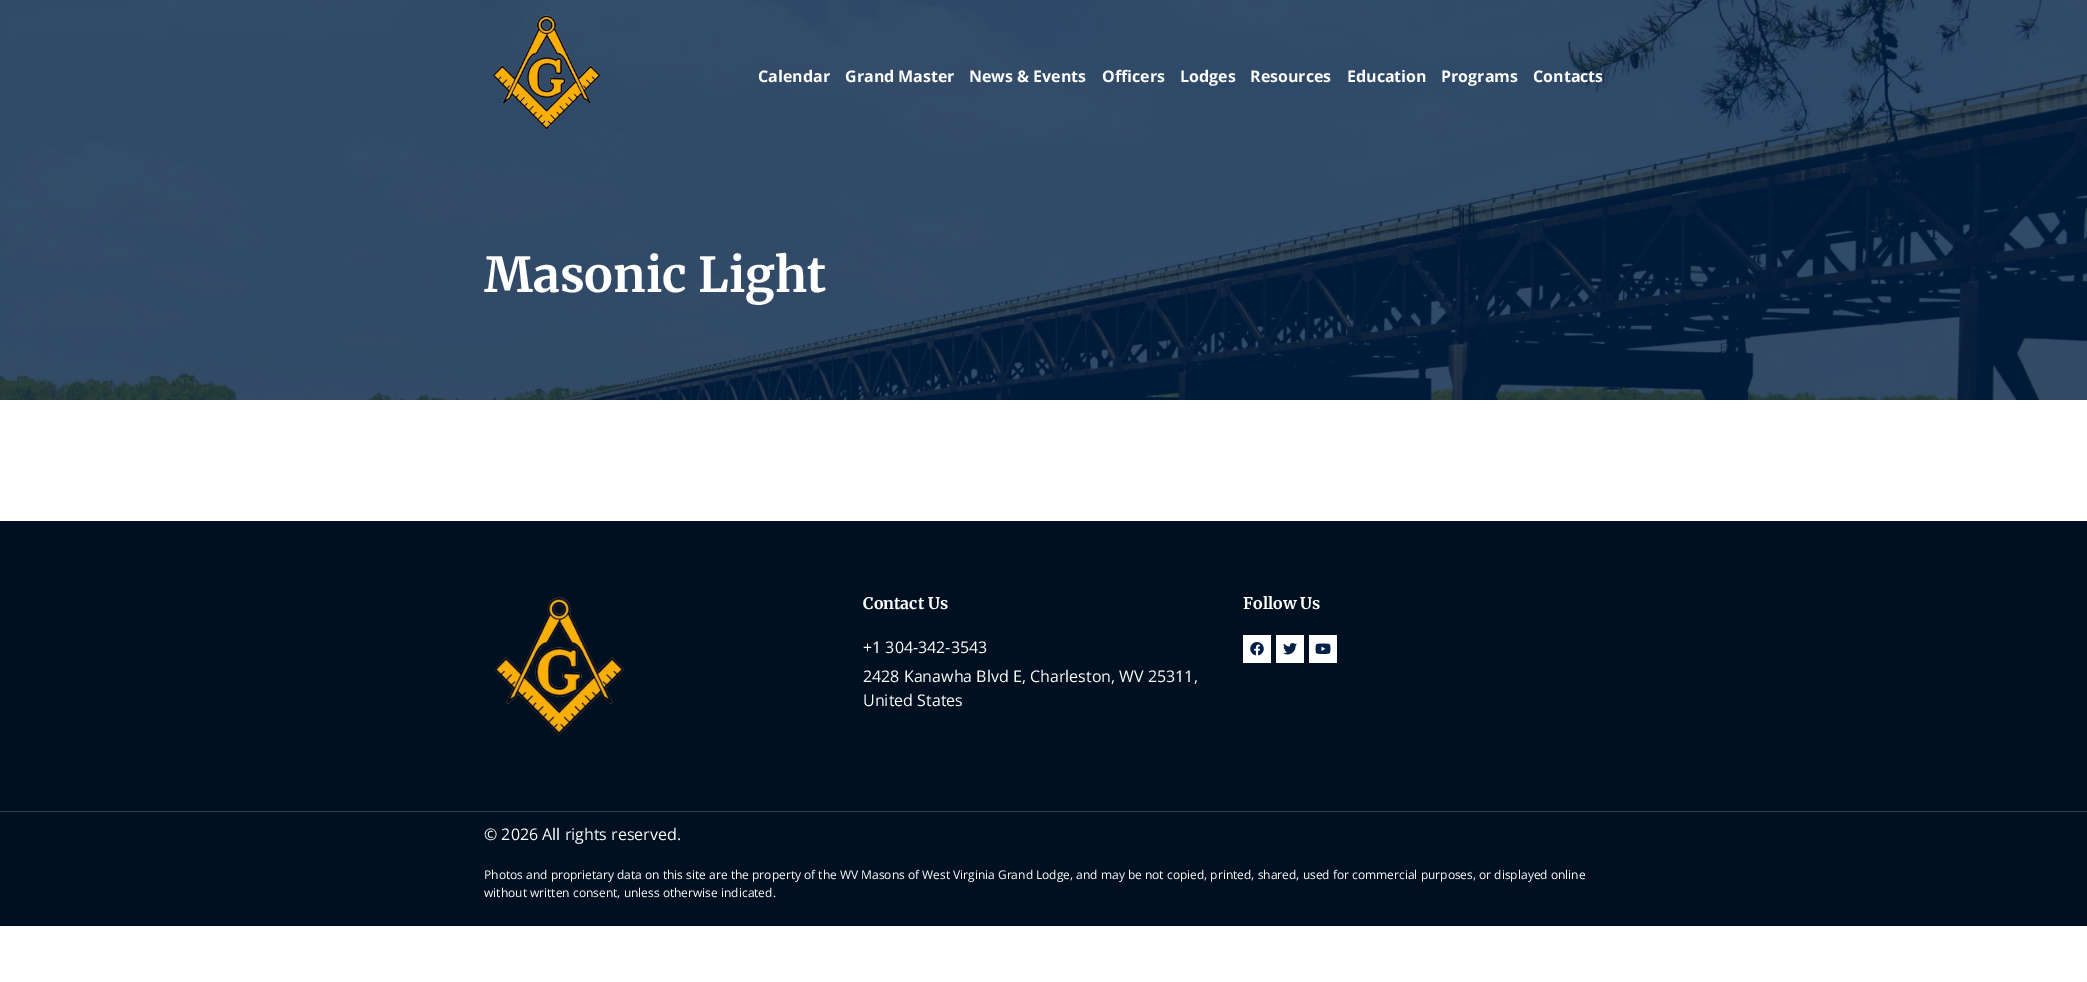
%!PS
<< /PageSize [2087 982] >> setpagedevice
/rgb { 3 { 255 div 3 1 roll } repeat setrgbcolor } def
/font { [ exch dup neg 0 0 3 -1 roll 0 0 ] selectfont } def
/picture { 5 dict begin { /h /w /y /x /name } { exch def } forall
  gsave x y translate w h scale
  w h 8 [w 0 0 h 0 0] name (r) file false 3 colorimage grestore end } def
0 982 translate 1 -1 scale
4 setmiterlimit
255 255 255 rgb
0 0 2087 982 rectfill
(img/2.rgb) 0 0 2087 400 picture
(img/1.rgb) 492 15 109 115 picture
0 16 33 rgb
0 521 2087 290 rectfill
(img/3.rgb) 494 597 131 138 picture
255 255 255 rgb
1243 635 28 28 rectfill
(img/4.rgb) 1250 642 14 14 picture
1276 635 28 28 rectfill
(img/5.rgb) 1283 643 14 12 picture
1309 635 28 28 rectfill
(img/6.rgb) 1315 643 16 11 picture
40 65 92 rgb
0 811 2087 1 rectfill
0 16 33 rgb
0 812 2087 114 rectfill
/OpenSans-Bold 16 font
255 255 255 rgb
[
  [(Calendar) 758 82]
  [(Grand Master) 845 82]
  [(News & Events) 969 82]
  [(Officers) 1102 82]
  [(Lodges) 1180 82]
  [(Resources) 1250 82]
  [(Education) 1347 82]
  [(Programs) 1441 82]
  [(Contacts) 1533 82]
] { aload pop moveto show } forall
/Merriweather-Bold 48 font
484 292 moveto (Masonic Light) show
/Merriweather-Bold 16 font
863 609 moveto (Contact Us) show
/OpenSans-Regular 16 font
[
  [(+1 304-342-3543) 863 653]
  [(2428 Kanawha Blvd E, Charleston, WV 25311,) 863 682]
  [(United States) 863 706]
] { aload pop moveto show } forall
/Merriweather-Bold 16 font
1243 609 moveto (Follow Us) show
/OpenSans-Regular 16 font
484 840 moveto (© 2026 All rights reserved.) show
/OpenSans-Regular 12 font
484 879 moveto (Photos and proprietary data on this site are the property of the WV Masons of West Virginia Grand Lodge, and may be not copied, printed, shared, used for commercial purposes, or displayed online) show
484 897 moveto (without written consent, unless otherwise indicated.) show
showpage
